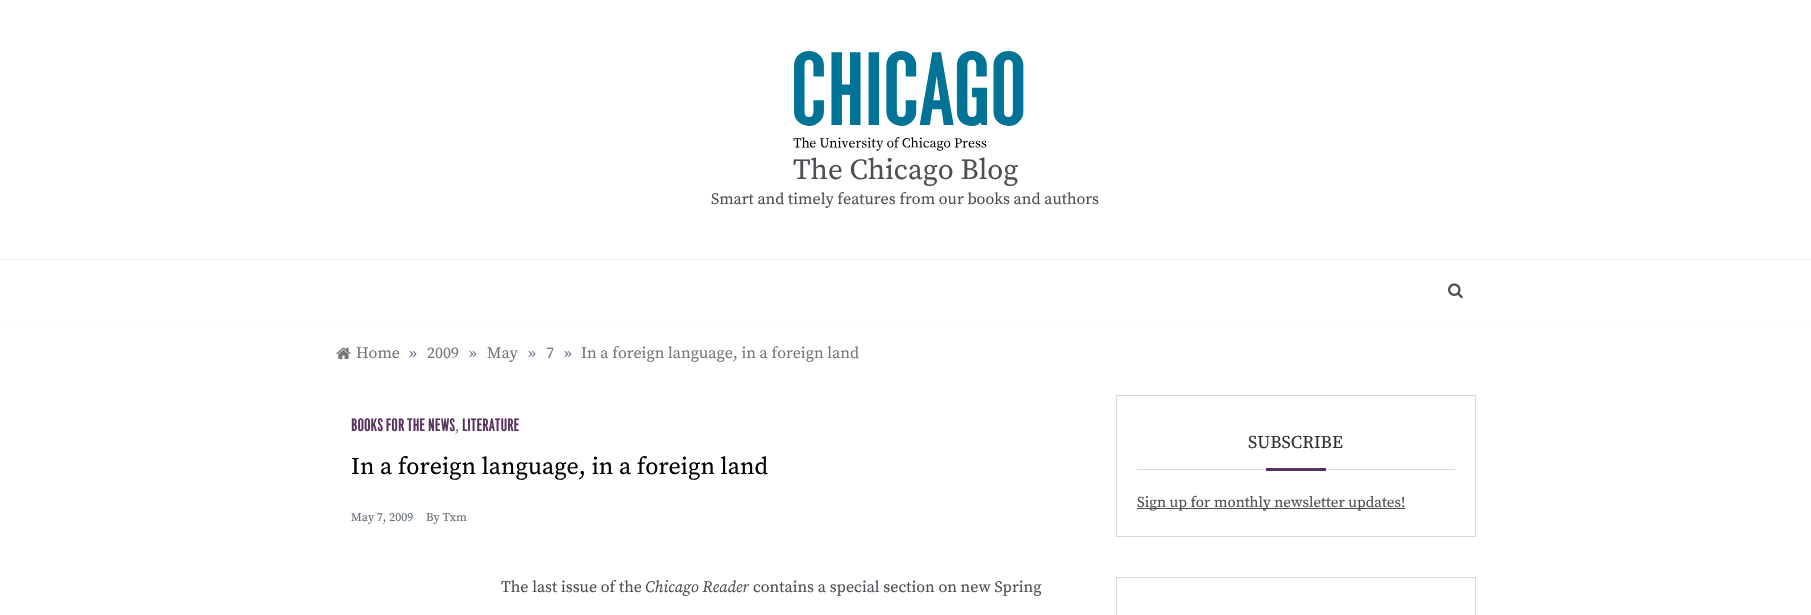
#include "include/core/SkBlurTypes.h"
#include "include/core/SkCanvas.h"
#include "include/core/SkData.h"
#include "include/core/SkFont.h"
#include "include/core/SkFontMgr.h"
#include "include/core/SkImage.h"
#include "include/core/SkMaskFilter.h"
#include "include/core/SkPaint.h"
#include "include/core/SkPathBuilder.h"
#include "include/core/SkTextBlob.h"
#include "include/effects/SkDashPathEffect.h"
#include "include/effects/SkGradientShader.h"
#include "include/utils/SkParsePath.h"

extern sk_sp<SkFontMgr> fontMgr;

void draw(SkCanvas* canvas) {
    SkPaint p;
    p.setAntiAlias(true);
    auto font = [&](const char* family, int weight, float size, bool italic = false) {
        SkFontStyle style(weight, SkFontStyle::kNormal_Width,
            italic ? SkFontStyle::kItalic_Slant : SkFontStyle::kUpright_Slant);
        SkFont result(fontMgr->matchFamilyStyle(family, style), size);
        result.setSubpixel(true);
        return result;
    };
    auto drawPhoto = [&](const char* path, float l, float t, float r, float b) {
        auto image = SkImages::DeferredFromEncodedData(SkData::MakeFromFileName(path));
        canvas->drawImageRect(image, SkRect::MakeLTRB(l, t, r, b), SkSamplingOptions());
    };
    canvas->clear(0xFFFFFFFF);
    p.setColor(0xFFFAFAFA);
    canvas->drawRect(SkRect::MakeLTRB(0, 320, 1811, 321), p);
    p.setColor(0xFFF2F2F2);
    canvas->drawRect(SkRect::MakeLTRB(0, 259, 1811, 260), p);
    drawPhoto("media/1.png", 793, 51, 1024, 151);
    auto font1 = font("Source Serif Pro", 400, 29);
    p.setColor(0xFF4C4F53);
    canvas->drawString("The Chicago Blog", 793, 179, font1, p);
    auto font2 = font("Source Serif Pro", 400, 16);
    canvas->drawString("Smart and timely features from our books and authors", 711, 204, font2, p);
    drawPhoto("media/2.png", 1448, 283, 1463, 299);
    drawPhoto("media/3.png", 336, 347, 351, 359);
    p.setColor(0xFF767676);
    canvas->drawString("Home", 356, 358, font2, p);
    p.setColor(0xFF697889);
    canvas->drawString("»", 409, 358, font2, p);
    p.setColor(0xFF767676);
    canvas->drawString("2009", 427, 358, font2, p);
    p.setColor(0xFF697889);
    canvas->drawString("»", 469, 358, font2, p);
    p.setColor(0xFF767676);
    canvas->drawString("May", 487, 358, font2, p);
    p.setColor(0xFF697889);
    canvas->drawString("»", 528, 358, font2, p);
    p.setColor(0xFF767676);
    canvas->drawString("7", 546, 358, font2, p);
    p.setColor(0xFF697889);
    canvas->drawString("»", 564, 358, font2, p);
    p.setColor(0xFF767676);
    canvas->drawString("In a foreign language, in a foreign land", 581, 358, font2, p);
    auto font3 = font("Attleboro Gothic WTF", 400, 14);
    p.setColor(0xFF59315F);
    canvas->drawString("BOOKS FOR THE NEWS", 351, 431, font3, p);
    auto font4 = font("Source Serif Pro", 400, 14);
    p.setColor(0xFF686E76);
    canvas->drawString(",", 455, 431, font4, p);
    p.setColor(0xFF59315F);
    canvas->drawString("LITERATURE", 462, 431, font3, p);
    auto font5 = font("Source Serif Pro", 400, 24);
    p.setColor(0xFF000000);
    canvas->drawString("In a foreign language, in a foreign land", 351, 474, font5, p);
    auto font6 = font("Source Serif Pro", 400, 12);
    p.setColor(0xFF686E76);
    canvas->drawString("May 7, 2009", 351, 521, font6, p);
    canvas->drawString("By Txm", 426, 521, font6, p);
    p.setColor(0xFF4C4F53);
    canvas->drawString("The last issue of the", 501, 592, font2, p);
    auto font7 = font("Source Serif Pro", 400, 16, true);
    canvas->drawString("Chicago Reader", 645, 592, font7, p);
    canvas->drawString("contains a special section on new Spring", 753, 592, font2, p);
    p.setStyle(SkPaint::kStroke_Style);
    p.setStrokeWidth(1);
    p.setColor(0xFFD9D9D9);
    canvas->drawRect(SkRect::MakeLTRB(1116.5f, 395.5f, 1475.5f, 536.5f), p);
    p.setStyle(SkPaint::kFill_Style);
    canvas->drawRect(SkRect::MakeLTRB(1137, 469, 1455, 470), p);
    auto font8 = font("Source Serif Pro", 400, 18);
    p.setColor(0xFF2F3235);
    canvas->drawString("SUBSCRIBE", 1248, 448, font8, p);
    p.setColor(0xFF59315F);
    canvas->drawRect(SkRect::MakeLTRB(1266, 468, 1326, 471), p);
    p.setColor(0xFF4C4F53);
    canvas->drawRect(SkRect::MakeLTRB(1137, 508, 1405, 509), p);
    auto font9 = font("Source Serif Pro", 400, 15);
    canvas->drawString("Sign up for monthly newsletter updates!", 1137, 507, font9, p);
    p.setStyle(SkPaint::kStroke_Style);
    p.setColor(0xFFD9D9D9);
    canvas->drawRect(SkRect::MakeLTRB(1116.5f, 577.5f, 1475.5f, 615.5f), p);
}
